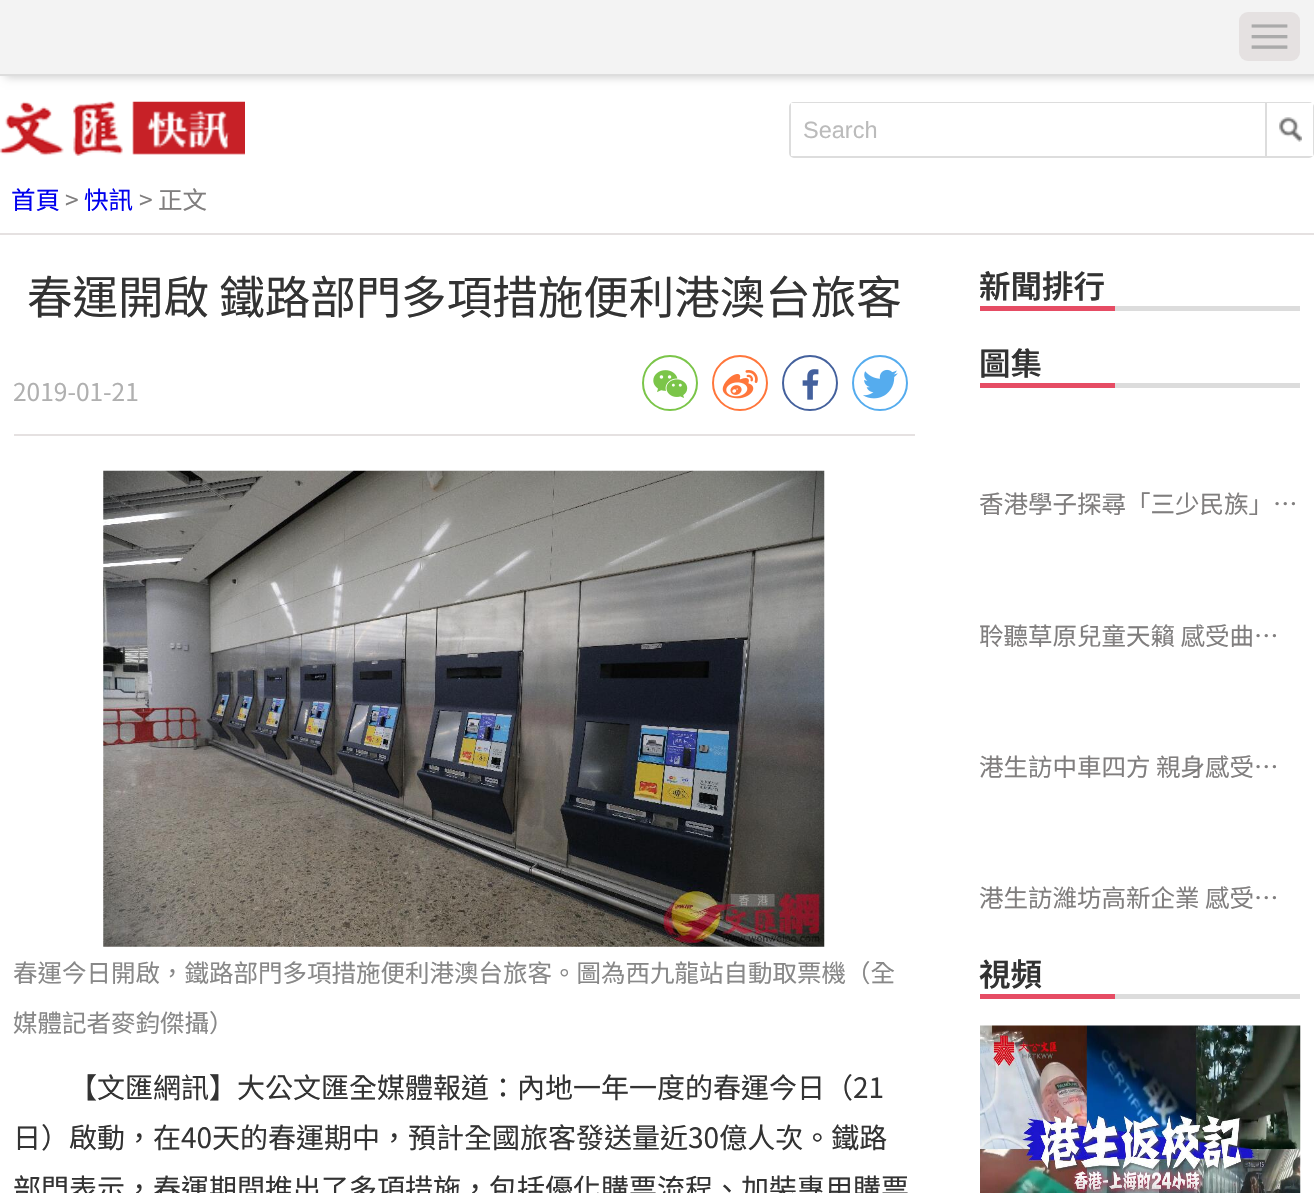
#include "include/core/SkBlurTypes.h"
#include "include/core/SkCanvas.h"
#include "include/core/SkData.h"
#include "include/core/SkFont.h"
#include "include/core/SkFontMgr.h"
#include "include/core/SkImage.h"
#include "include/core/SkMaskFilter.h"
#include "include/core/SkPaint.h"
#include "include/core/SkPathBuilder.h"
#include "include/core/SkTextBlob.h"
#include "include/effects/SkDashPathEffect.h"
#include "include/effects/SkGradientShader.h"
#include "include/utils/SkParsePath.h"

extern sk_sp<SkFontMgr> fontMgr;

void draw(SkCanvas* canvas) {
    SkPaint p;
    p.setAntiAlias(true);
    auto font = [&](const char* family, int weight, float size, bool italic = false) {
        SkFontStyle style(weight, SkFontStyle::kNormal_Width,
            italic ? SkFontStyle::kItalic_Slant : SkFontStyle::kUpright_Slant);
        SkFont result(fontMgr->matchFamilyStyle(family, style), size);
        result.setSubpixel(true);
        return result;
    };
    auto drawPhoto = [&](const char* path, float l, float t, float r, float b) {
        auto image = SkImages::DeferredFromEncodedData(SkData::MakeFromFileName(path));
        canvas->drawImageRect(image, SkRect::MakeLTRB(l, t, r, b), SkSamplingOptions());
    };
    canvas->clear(0xFFFFFFFF);
    p.setColor(0xFFCCCCCC);
    p.setMaskFilter(SkMaskFilter::MakeBlur(kNormal_SkBlurStyle, 4.5f));
    canvas->drawRect(SkRect::MakeLTRB(5, 2, 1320, 77), p);
    p.setMaskFilter(nullptr);
    p.setColor(0xFFF3F3F3);
    canvas->drawRect(SkRect::MakeLTRB(0, 0, 1314, 74), p);
    p.setColor(0xFFDDDDDD);
    canvas->drawRect(SkRect::MakeLTRB(0, 74, 1314, 76), p);
    p.setColor(0xFFE5E1E1);
    canvas->drawRoundRect(SkRect::MakeLTRB(1239, 12, 1300, 61), 9, 9, p);
    auto font1 = font("Noto Sans TC", 400, 49);
    p.setColor(0xFFAAAAAA);
    canvas->drawString("≡", 1245, 55, font1, p);
    p.setColor(0xFFE5E1E1);
    canvas->drawRect(SkRect::MakeLTRB(0, 233, 1314, 235), p);
    drawPhoto("media/1.png", 0, 101, 245, 156);
    p.setStyle(SkPaint::kStroke_Style);
    p.setStrokeWidth(2);
    p.setColor(0xFFDDDDDD);
    canvas->drawRoundRect(SkRect::MakeLTRB(790, 103, 1313, 157), 4, 4, p);
    p.setStyle(SkPaint::kFill_Style);
    p.setColor(0xFFFFFFFF);
    canvas->drawRect(SkRect::MakeLTRB(791, 103, 1313, 156), p);
    auto font2 = font("Liberation Sans", 400, 23.5f);
    p.setColor(0xFFBBBBBB);
    canvas->drawString("Search", 803, 138, font2, p);
    drawPhoto("media/2.png", 1279, 117, 1302, 142);
    p.setColor(0xFFDDDDDD);
    canvas->drawRect(SkRect::MakeLTRB(1265, 103, 1267, 156), p);
    auto font3 = font("Noto Sans TC", 400, 24.5f);
    p.setColor(0xFF0000EE);
    canvas->drawString("首頁", 11, 209, font3, p);
    p.setColor(0xFF807E7E);
    canvas->drawString(">", 65, 209, font3, p);
    p.setColor(0xFF0000EE);
    canvas->drawString("快訊", 84, 209, font3, p);
    p.setColor(0xFF807E7E);
    canvas->drawString("> 正文", 139, 209, font3, p);
    p.setColor(0xFFE5E1E1);
    canvas->drawRect(SkRect::MakeLTRB(14, 434, 915, 436), p);
    auto font4 = font("Noto Sans TC", 400, 45.5f);
    p.setColor(0xFF333333);
    canvas->drawString("春運開啟 鐵路部門多項措施便利港澳台旅客", 27, 314, font4, p);
    p.setColor(0xFFB0B0B0);
    canvas->drawString("2019-01-21", 13, 401, font3, p);
    p.setStyle(SkPaint::kStroke_Style);
    p.setColor(0xFF7BC549);
    canvas->drawCircle(670, 383, 27, p);
    drawPhoto("media/3.png", 653, 370, 688, 398);
    p.setColor(0xFFFF763B);
    canvas->drawCircle(740, 383, 27, p);
    drawPhoto("media/4.png", 722, 370, 758, 399);
    p.setColor(0xFF44619D);
    canvas->drawCircle(810, 383, 27, p);
    drawPhoto("media/5.png", 802, 369, 819, 400);
    p.setColor(0xFF55ACEE);
    canvas->drawCircle(880, 383, 27, p);
    drawPhoto("media/6.png", 863, 369, 898, 399);
    drawPhoto("media/7.png", 103, 470, 825, 947);
    p.setStyle(SkPaint::kFill_Style);
    p.setColor(0xFF888888);
    canvas->drawString("春運今日開啟，鐵路部門多項措施便利港澳台旅客。圖為西九龍站自動取票機（全", 13, 982, font3, p);
    canvas->drawString("媒體記者麥鈞傑攝）", 13, 1032, font3, p);
    auto font5 = font("Noto Sans TC", 400, 28);
    p.setColor(0xFF333333);
    {
        const struct { const char* s; float x, y; } items[] = {
            {"【文匯網訊】大公文匯全媒體報道：內地一年一度的春運今日（21", 69, 1098},
            {"日）啟動，在40天的春運期中，預計全國旅客發送量近30億人次。鐵路", 13, 1148},
            {"部門表示，春運期間推出了多項措施，包括優化購票流程、加裝專用購票", 13, 1199},
        };
        for (auto [s, x, y] : items) {
            canvas->drawString(s, x, y, font5, p);
        }
    }
    p.setColor(0xFFE64C64);
    canvas->drawRect(SkRect::MakeLTRB(980, 306, 1115, 311), p);
    auto font6 = font("Noto Sans TC", 600, 31.5f);
    p.setColor(0xFF333333);
    canvas->drawString("新聞排行", 979, 298, font6, p);
    p.setColor(0xFFDCDCDC);
    canvas->drawRect(SkRect::MakeLTRB(1115, 306, 1300, 311), p);
    p.setColor(0xFFE64C64);
    canvas->drawRect(SkRect::MakeLTRB(980, 383, 1115, 388), p);
    p.setColor(0xFF333333);
    canvas->drawString("圖集", 979, 375, font6, p);
    p.setColor(0xFFDCDCDC);
    canvas->drawRect(SkRect::MakeLTRB(1115, 383, 1300, 388), p);
    p.setColor(0xFF807E7E);
    {
        const struct { const char* s; float x, y; } items[] = {
            {"香港學子探尋「三少民族」…", 979, 513},
            {"聆聽草原兒童天籟 感受曲…", 979, 645},
            {"港生訪中車四方 親身感受…", 979, 776},
            {"港生訪濰坊高新企業 感受…", 979, 907},
        };
        for (auto [s, x, y] : items) {
            canvas->drawString(s, x, y, font3, p);
        }
    }
    p.setColor(0xFFE64C64);
    canvas->drawRect(SkRect::MakeLTRB(980, 994, 1115, 999), p);
    p.setColor(0xFF333333);
    canvas->drawString("視頻", 979, 986, font6, p);
    p.setColor(0xFFDCDCDC);
    canvas->drawRect(SkRect::MakeLTRB(1115, 994, 1300, 999), p);
    drawPhoto("media/8.png", 980, 1025, 1301, 1193);
}
